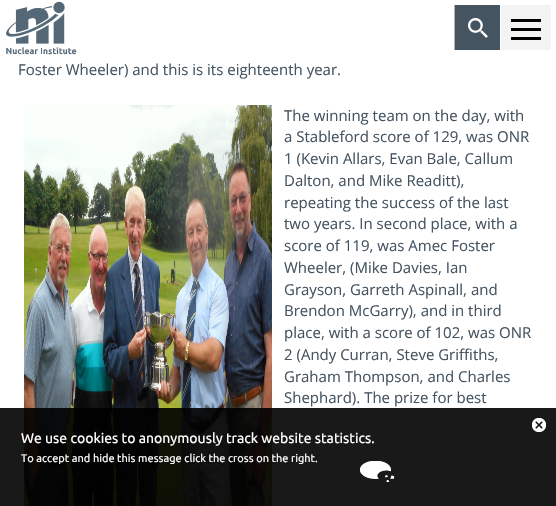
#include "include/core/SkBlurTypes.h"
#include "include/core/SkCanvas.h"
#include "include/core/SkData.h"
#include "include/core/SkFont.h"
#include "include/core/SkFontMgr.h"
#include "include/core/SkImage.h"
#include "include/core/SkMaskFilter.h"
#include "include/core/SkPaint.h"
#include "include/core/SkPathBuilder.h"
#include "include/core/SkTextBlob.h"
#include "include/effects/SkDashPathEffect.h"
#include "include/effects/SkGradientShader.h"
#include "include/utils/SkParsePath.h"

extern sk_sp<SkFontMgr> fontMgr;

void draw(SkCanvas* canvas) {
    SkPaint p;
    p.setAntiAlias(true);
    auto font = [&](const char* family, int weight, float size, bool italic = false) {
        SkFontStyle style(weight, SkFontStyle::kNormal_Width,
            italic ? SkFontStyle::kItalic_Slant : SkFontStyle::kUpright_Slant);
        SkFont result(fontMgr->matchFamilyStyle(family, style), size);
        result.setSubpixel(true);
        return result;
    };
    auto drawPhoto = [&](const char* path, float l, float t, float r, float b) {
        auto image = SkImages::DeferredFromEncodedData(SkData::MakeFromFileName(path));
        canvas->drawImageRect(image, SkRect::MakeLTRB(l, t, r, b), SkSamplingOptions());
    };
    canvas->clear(0xFFFFFFFF);
    drawPhoto("media/1.png", 6, 1, 77, 55);
    p.setColor(0xFFB2B2B2);
    canvas->drawRect(SkRect::MakeLTRB(454, 5, 455, 50), p);
    p.setColor(0xFF445461);
    canvas->drawRect(SkRect::MakeLTRB(455, 5, 500, 50), p);
    drawPhoto("media/2.png", 468, 18, 488, 38);
    {
        const struct { float l, t, r, b; SkColor color; } items[] = {
            {501, 5, 551, 50, 0xFFF3F3F3},
            {511, 28, 541, 31, 0xFF000000},
            {511, 19, 541, 22, 0xFF000000},
            {511, 37, 541, 40, 0xFF000000},
        };
        for (auto [l, t, r, b, color] : items) {
            p.setColor(color);
            canvas->drawRect(SkRect::MakeLTRB(l, t, r, b), p);
        }
    }
    auto font1 = font("Open Sans", 400, 15);
    p.setColor(0xFF445461);
    canvas->drawString("Foster Wheeler) and this is its eighteenth year.", 18, 75, font1, p);
    drawPhoto("media/3.png", 24, 105, 272, 506);
    {
        const struct { const char* s; float x, y; } items[] = {
            {"The winning team on the day, with", 284, 121},
            {"a Stableford score of 129, was ONR", 284, 142},
            {"1 (Kevin Allars, Evan Bale, Callum", 284, 164},
            {"Dalton, and Mike Readitt),", 284, 186},
            {"repeating the success of the last", 284, 208},
            {"two years. In second place, with a", 284, 229},
            {"score of 119, was Amec Foster", 284, 251},
            {"Wheeler, (Mike Davies, Ian", 284, 273},
            {"Grayson, Garreth Aspinall, and", 284, 295},
            {"Brendon McGarry), and in third", 284, 316},
            {"place, with a score of 102, was ONR", 284, 338},
            {"2 (Andy Curran, Steve Griffiths,", 284, 360},
            {"Graham Thompson, and Charles", 284, 382},
            {"Shephard). The prize for best", 284, 403},
        };
        for (auto [s, x, y] : items) {
            canvas->drawString(s, x, y, font1, p);
        }
    }
    p.setColor(0xE6000000);
    canvas->drawRect(SkRect::MakeLTRB(0, 408, 556, 506), p);
    drawPhoto("media/4.png", 532, 418, 546, 432);
    drawPhoto("media/5.png", 360, 461, 395, 482);
    auto font2 = font("Ubuntu", 400, 14);
    p.setColor(0xFFFFFFFF);
    canvas->drawString("We use cookies to anonymously track website statistics.", 21, 443, font2, p);
    auto font3 = font("Ubuntu", 400, 11);
    canvas->drawString("To accept and hide this message click the cross on the right.", 21, 462, font3, p);
}
